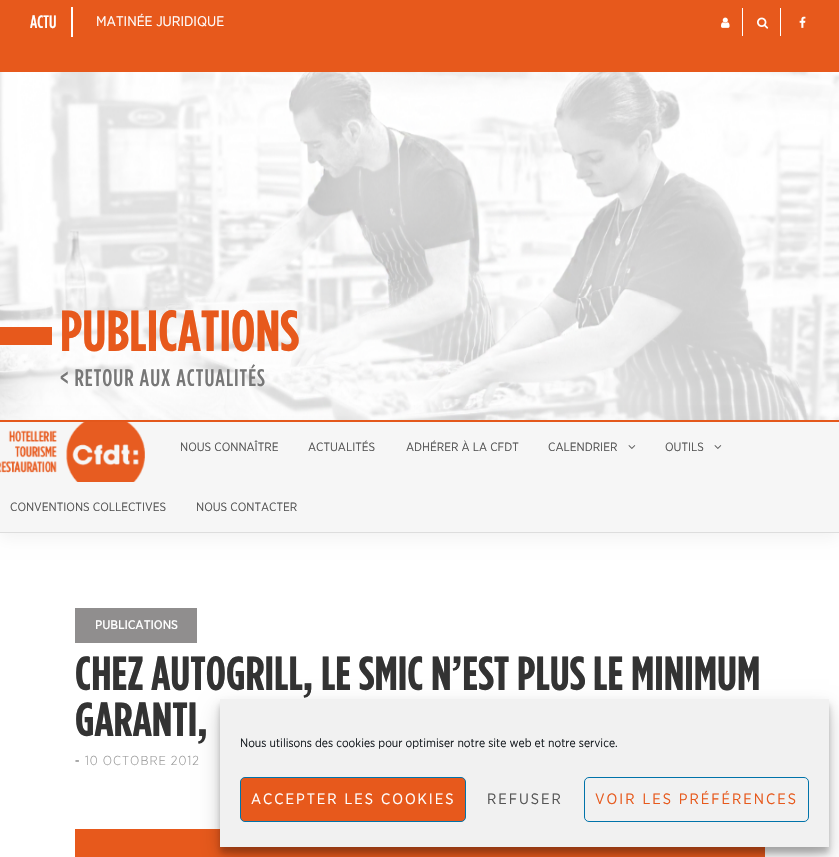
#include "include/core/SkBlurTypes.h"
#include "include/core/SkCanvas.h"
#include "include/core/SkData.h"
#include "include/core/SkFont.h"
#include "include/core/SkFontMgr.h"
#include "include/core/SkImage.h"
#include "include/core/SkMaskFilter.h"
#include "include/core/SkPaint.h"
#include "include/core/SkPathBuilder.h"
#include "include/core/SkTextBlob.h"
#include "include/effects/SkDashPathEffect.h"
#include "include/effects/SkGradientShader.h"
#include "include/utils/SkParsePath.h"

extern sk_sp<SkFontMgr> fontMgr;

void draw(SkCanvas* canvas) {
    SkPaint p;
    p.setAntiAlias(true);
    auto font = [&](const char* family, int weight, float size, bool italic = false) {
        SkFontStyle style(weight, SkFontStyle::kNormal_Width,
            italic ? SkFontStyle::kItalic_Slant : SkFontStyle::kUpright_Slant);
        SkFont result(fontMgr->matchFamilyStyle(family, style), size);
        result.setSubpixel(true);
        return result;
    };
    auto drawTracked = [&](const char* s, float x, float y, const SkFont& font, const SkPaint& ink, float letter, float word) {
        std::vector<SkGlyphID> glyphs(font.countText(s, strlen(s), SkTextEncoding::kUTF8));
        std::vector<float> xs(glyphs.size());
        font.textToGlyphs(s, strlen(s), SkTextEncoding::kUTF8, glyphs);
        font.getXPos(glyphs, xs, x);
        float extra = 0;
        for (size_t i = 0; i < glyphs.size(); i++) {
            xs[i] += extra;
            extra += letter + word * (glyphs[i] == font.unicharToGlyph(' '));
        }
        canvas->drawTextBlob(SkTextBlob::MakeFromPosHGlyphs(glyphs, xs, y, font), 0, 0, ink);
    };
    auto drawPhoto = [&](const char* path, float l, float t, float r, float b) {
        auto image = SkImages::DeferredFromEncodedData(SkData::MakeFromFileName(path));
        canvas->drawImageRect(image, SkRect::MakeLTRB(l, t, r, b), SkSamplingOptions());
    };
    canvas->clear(0xFFFFFFFF);
    p.setColor(0xFFE7591C);
    canvas->drawRect(SkRect::MakeLTRB(0, 0, 839, 72), p);
    p.setColor(0xFFFFFFFF);
    canvas->drawRect(SkRect::MakeLTRB(71, 7, 73, 37), p);
    auto font1 = font("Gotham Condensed", 500, 18);
    canvas->drawString("ACTU", 30, 28, font1, p);
    auto font2 = font("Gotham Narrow", 400, 14);
    canvas->drawString("MATINÉE JURIDIQUE", 96, 26, font2, p);
    canvas->drawRect(SkRect::MakeLTRB(742, 8, 743, 36), p);
    drawPhoto("media/1.png", 721, 17, 730, 28);
    canvas->drawRect(SkRect::MakeLTRB(780, 8, 781, 36), p);
    drawPhoto("media/2.png", 757, 17, 769, 29);
    drawPhoto("media/3.png", 799, 16, 806, 28);
    p.setColor(0xFFE7591C);
    canvas->drawRect(SkRect::MakeLTRB(0, 420, 839, 422), p);
    drawPhoto("media/6.png", 0, 72, 839, 420);
    canvas->drawRect(SkRect::MakeLTRB(0, 327, 52, 345), p);
    auto font3 = font("Gotham Condensed", 700, 58);
    canvas->drawString("PUBLICATIONS", 60, 351, font3, p);
    auto font4 = font("Gotham Condensed", 500, 24);
    p.setColor(0xFF777777);
    drawTracked("< RETOUR AUX ACTUALITÉS", 60, 386, font4, p, 1, 0);
    p.setColor(0x0D000000);
    p.setMaskFilter(SkMaskFilter::MakeBlur(kNormal_SkBlurStyle, 7.5f));
    canvas->drawRect(SkRect::MakeLTRB(0, 427, 839, 538), p);
    p.setMaskFilter(nullptr);
    p.setColor(0xFFF6F6F6);
    canvas->drawRect(SkRect::MakeLTRB(0, 422, 839, 532), p);
    p.setColor(0xFFDDDDDD);
    canvas->drawRect(SkRect::MakeLTRB(0, 532, 839, 533), p);
    drawPhoto("media/4.png", 0, 422, 145, 482);
    auto font5 = font("Gotham Narrow", 400, 12);
    p.setColor(0xFF555555);
    {
        const struct { const char* s; float x, y; } items[] = {
            {"NOUS CONNAÎTRE", 180, 451},
            {"ACTUALITÉS", 308, 451},
            {"ADHÉRER À LA CFDT", 406, 451},
            {"CALENDRIER", 548, 451},
        };
        for (auto [s, x, y] : items) {
            canvas->drawString(s, x, y, font5, p);
        }
    }
    drawPhoto("media/5.png", 628, 445, 636, 449);
    canvas->drawString("OUTILS", 665, 451, font5, p);
    drawPhoto("media/5.png", 714, 445, 722, 449);
    canvas->drawString("CONVENTIONS COLLECTIVES", 10, 511, font5, p);
    canvas->drawString("NOUS CONTACTER", 196, 511, font5, p);
    p.setColor(0xFF908E8E);
    canvas->drawRect(SkRect::MakeLTRB(75, 608, 197, 643), p);
    auto font6 = font("Gotham Narrow", 700, 12);
    p.setColor(0xFFFFFFFF);
    drawTracked("PUBLICATIONS", 95, 629, font6, p, 0.25f, 0);
    auto font7 = font("Gotham Condensed", 700, 48);
    p.setColor(0xFF333333);
    canvas->drawString("CHEZ AUTOGRILL, LE SMIC N’EST PLUS LE MINIMUM", 75, 690, font7, p);
    canvas->drawString("GARANTI,", 75, 736, font7, p);
    auto font8 = font("Gotham Condensed", 700, 13);
    p.setColor(0xFF999999);
    canvas->drawString("-", 75, 765, font8, p);
    auto font9 = font("Gotham Narrow", 300, 13);
    drawTracked("10 OCTOBRE 2012", 85, 765, font9, p, 1, 0);
    p.setColor(0xFFE7591C);
    canvas->drawRect(SkRect::MakeLTRB(75, 829, 765, 857), p);
    p.setColor(0x3B000000);
    p.setMaskFilter(SkMaskFilter::MakeBlur(kNormal_SkBlurStyle, 3));
    canvas->drawRect(SkRect::MakeLTRB(220, 705, 829, 853), p);
    p.setMaskFilter(nullptr);
    p.setColor(0x30000000);
    p.setMaskFilter(SkMaskFilter::MakeBlur(kNormal_SkBlurStyle, 10));
    canvas->drawRect(SkRect::MakeLTRB(220, 709, 829, 857), p);
    p.setMaskFilter(nullptr);
    p.setColor(0xFFF1F1F1);
    canvas->drawRect(SkRect::MakeLTRB(220, 699, 829, 847), p);
    p.setColor(0xFF191E23);
    canvas->drawString("Nous utilisons des cookies pour optimiser notre site web et notre service.", 240, 747, font5, p);
    p.setColor(0xFFE7591C);
    canvas->drawRoundRect(SkRect::MakeLTRB(240.5f, 777.5f, 465.5f, 821.5f), 4.5f, 4.5f, p);
    p.setStyle(SkPaint::kStroke_Style);
    p.setStrokeWidth(1);
    p.setColor(0xFF0073AA);
    canvas->drawRoundRect(SkRect::MakeLTRB(240.5f, 777.5f, 465.5f, 821.5f), 4.5f, 4.5f, p);
    auto font10 = font("Gotham Narrow", 400, 15);
    p.setStyle(SkPaint::kFill_Style);
    p.setColor(0xFFFFFFFF);
    drawTracked("ACCEPTER LES COOKIES", 251, 804, font10, p, 2, 0);
    p.setColor(0xFF555555);
    drawTracked("REFUSER", 487, 804, font10, p, 2, 0);
    p.setStyle(SkPaint::kStroke_Style);
    p.setColor(0xFF0073AA);
    canvas->drawRoundRect(SkRect::MakeLTRB(584.5f, 777.5f, 808.5f, 821.5f), 4.5f, 4.5f, p);
    p.setStyle(SkPaint::kFill_Style);
    p.setColor(0xFFE7591C);
    drawTracked("VOIR LES PRÉFÉRENCES", 595, 804, font10, p, 2, 0);
}
